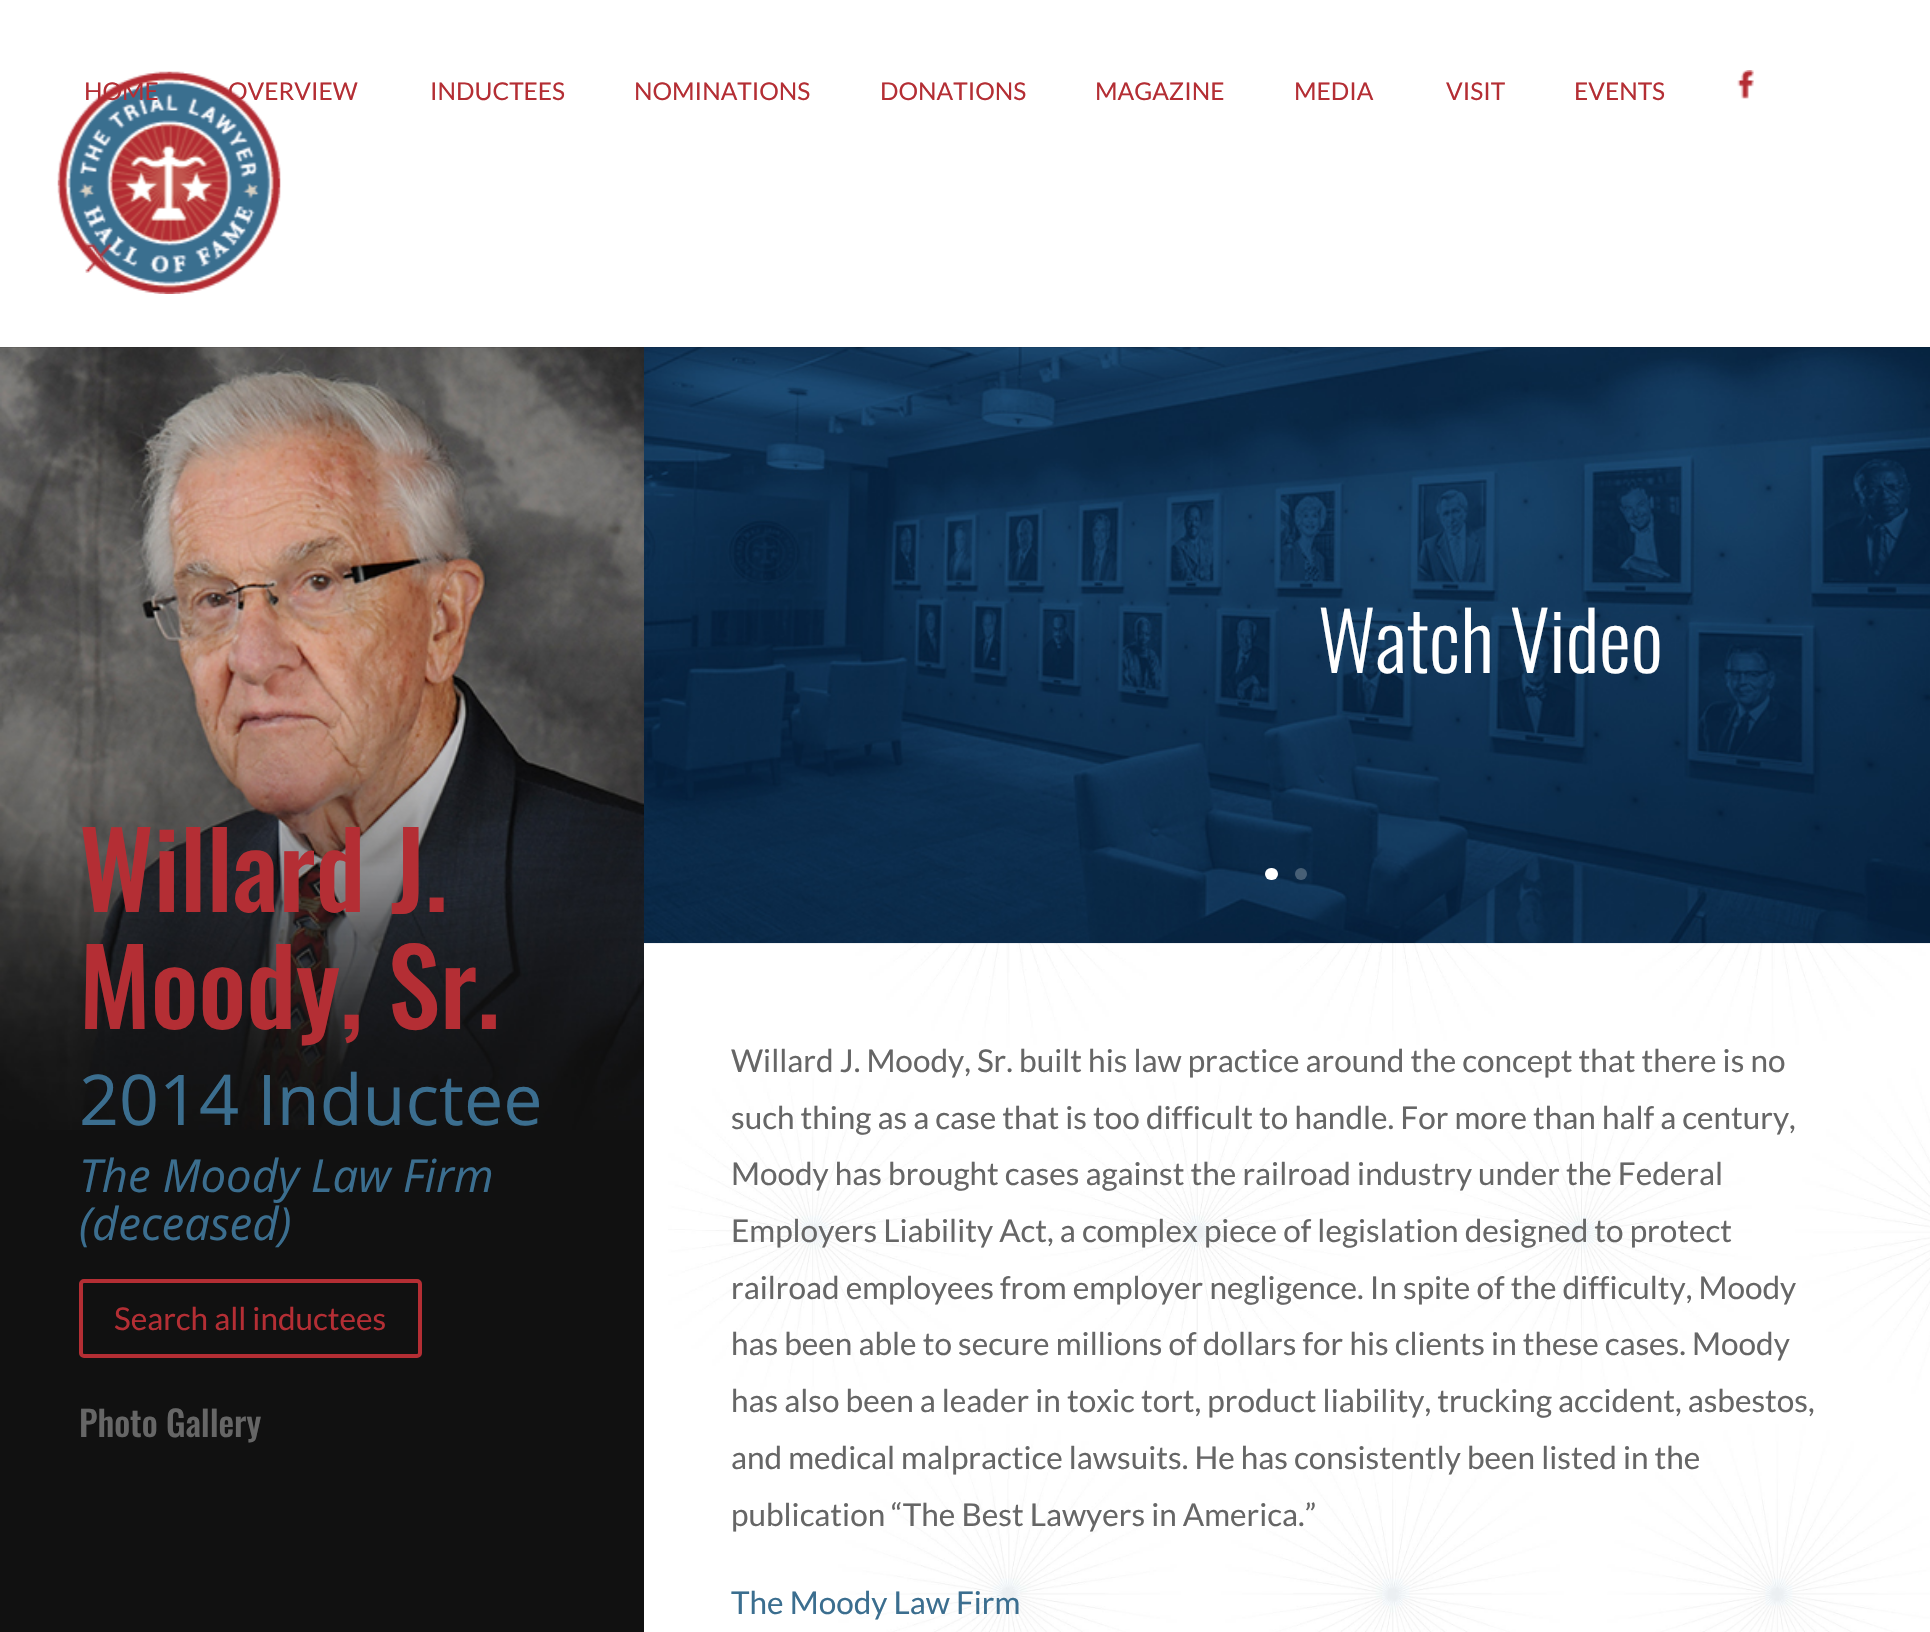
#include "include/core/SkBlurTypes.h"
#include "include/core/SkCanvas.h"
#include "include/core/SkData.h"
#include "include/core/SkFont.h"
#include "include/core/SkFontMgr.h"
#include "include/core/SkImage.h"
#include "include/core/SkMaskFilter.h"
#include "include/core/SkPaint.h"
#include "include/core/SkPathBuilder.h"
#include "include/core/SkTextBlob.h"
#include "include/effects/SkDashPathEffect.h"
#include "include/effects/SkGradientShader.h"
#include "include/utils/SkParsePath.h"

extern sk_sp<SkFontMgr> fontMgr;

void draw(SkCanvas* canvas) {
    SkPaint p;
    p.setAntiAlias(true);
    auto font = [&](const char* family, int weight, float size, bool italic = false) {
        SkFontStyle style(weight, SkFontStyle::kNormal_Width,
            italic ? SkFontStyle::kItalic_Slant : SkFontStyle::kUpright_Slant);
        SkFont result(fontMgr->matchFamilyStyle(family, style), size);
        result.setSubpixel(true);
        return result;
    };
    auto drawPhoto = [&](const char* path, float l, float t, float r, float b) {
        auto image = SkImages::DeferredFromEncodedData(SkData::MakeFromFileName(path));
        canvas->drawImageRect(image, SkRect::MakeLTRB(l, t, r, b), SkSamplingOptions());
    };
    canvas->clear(0xFFFFFFFF);
    drawPhoto("media/4.png", 0, 347, 644, 1130);
    drawPhoto("media/5.png", 668, 943, 1930, 1632);
    drawPhoto("media/6.png", 644, 347, 1930, 944);
    p.setColor(0x1A000000);
    canvas->drawRect(SkRect::MakeLTRB(0, 347, 1930, 348), p);
    drawPhoto("media/1.png", 57, 71, 281, 294);
    auto font1 = font("Lato", 400, 24.5f);
    p.setColor(0xFFB42E34);
    {
        const struct { const char* s; float x, y; } items[] = {
            {"HOME", 84, 100},
            {"OVERVIEW", 228, 100},
            {"INDUCTEES", 430, 100},
            {"NOMINATIONS", 634, 100},
            {"DONATIONS", 880, 100},
            {"MAGAZINE", 1095, 100},
            {"MEDIA", 1294, 100},
            {"VISIT", 1446, 100},
            {"EVENTS", 1574, 100},
        };
        for (auto [s, x, y] : items) {
            canvas->drawString(s, x, y, font1, p);
        }
    }
    drawPhoto("media/2.png", 1737, 70, 1754, 99);
    drawPhoto("media/3.png", 85, 243, 113, 273);
    p.setColor(0xFF111111);
    canvas->drawRect(SkRect::MakeLTRB(0, 1130, 644, 1632), p);
    auto font2 = font("Oswald", 500, 105);
    p.setColor(0xFFB42E34);
    canvas->drawString("Willard J.", 79, 912, font2, p);
    canvas->drawString("Moody, Sr.", 79, 1029, font2, p);
    auto font3 = font("Open Sans", 400, 70);
    p.setColor(0xFF3B6E8F);
    canvas->drawString("2014 Inductee", 79, 1125, font3, p);
    auto font4 = font("Open Sans", 400, 45.5f, true);
    canvas->drawString("The Moody Law Firm", 79, 1192, font4, p);
    canvas->drawString("(deceased)", 79, 1240, font4, p);
    p.setStyle(SkPaint::kStroke_Style);
    p.setStrokeWidth(4);
    p.setColor(0xFFB42E34);
    canvas->drawRoundRect(SkRect::MakeLTRB(81, 1281, 420, 1356), 3, 3, p);
    auto font5 = font("Lato", 400, 31.5f);
    p.setStyle(SkPaint::kFill_Style);
    canvas->drawString("Search all inductees", 114, 1330, font5, p);
    auto font6 = font("Oswald", 500, 35);
    p.setColor(0xFF666666);
    canvas->drawString("Photo Gallery", 79, 1437, font6, p);
    auto font7 = font("Oswald", 300, 80.5f);
    p.setColor(0xFFFFFFFF);
    canvas->drawString("Watch Video", 1318, 673, font7, p);
    canvas->drawRoundRect(SkRect::MakeLTRB(1265, 868, 1278, 880), 6, 6, p);
    p.setColor(0x40FFFFFF);
    canvas->drawCircle(1301, 874, 6, p);
    p.setColor(0xFF666666);
    {
        const struct { const char* s; float x, y; } items[] = {
            {"Willard J. Moody, Sr. built his law practice around the concept that there is no", 731, 1072},
            {"such thing as a case that is too difficult to handle. For more than half a century,", 731, 1129},
            {"Moody has brought cases against the railroad industry under the Federal", 731, 1185},
            {"Employers Liability Act, a complex piece of legislation designed to protect", 731, 1242},
            {"railroad employees from employer negligence. In spite of the difficulty, Moody", 731, 1299},
            {"has been able to secure millions of dollars for his clients in these cases. Moody", 731, 1355},
            {"has also been a leader in toxic tort, product liability, trucking accident, asbestos,", 731, 1412},
            {"and medical malpractice lawsuits. He has consistently been listed in the", 731, 1469},
            {"publication “The Best Lawyers in America.”", 731, 1526},
        };
        for (auto [s, x, y] : items) {
            canvas->drawString(s, x, y, font5, p);
        }
    }
    p.setColor(0xFF3B6E8F);
    canvas->drawString("The Moody Law Firm", 731, 1614, font5, p);
}
